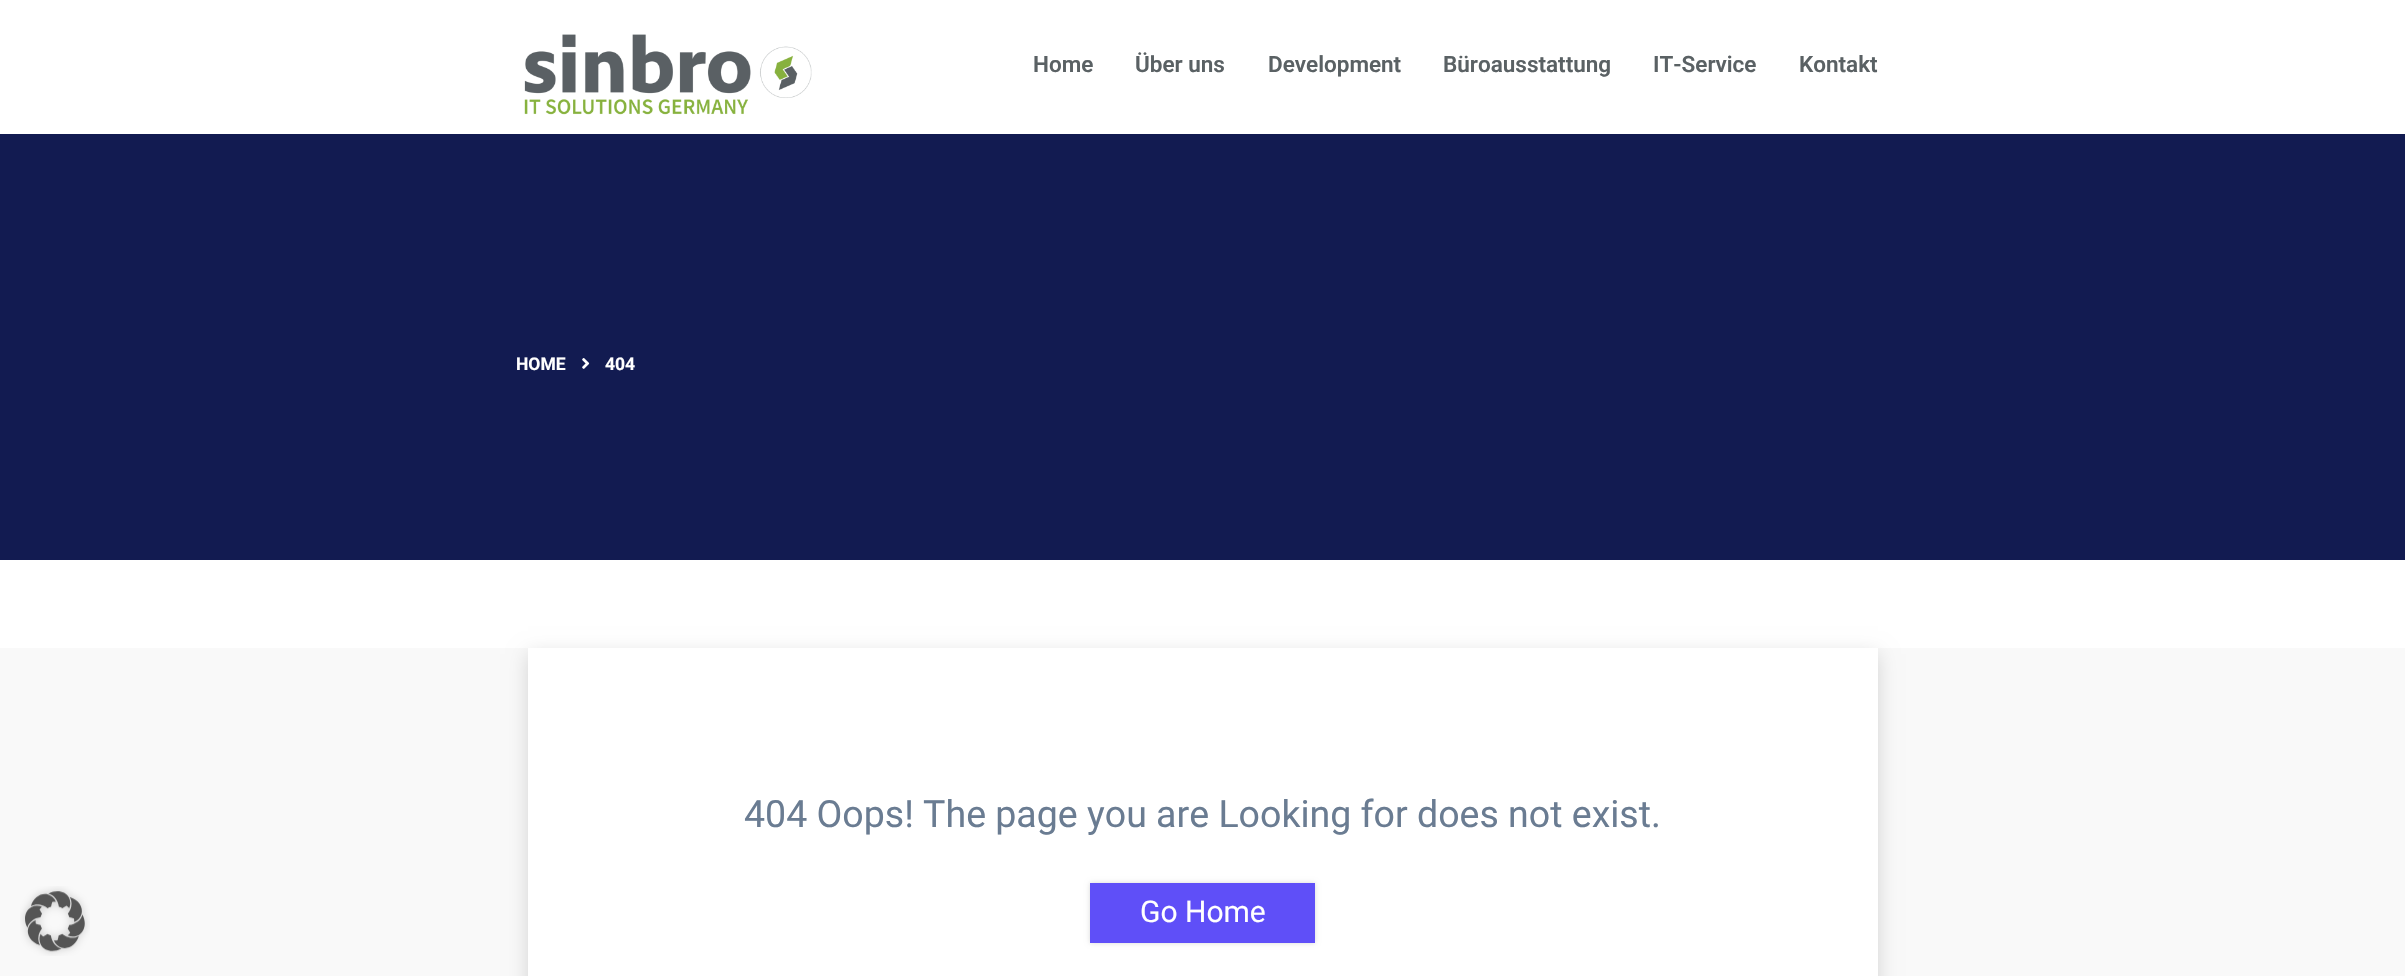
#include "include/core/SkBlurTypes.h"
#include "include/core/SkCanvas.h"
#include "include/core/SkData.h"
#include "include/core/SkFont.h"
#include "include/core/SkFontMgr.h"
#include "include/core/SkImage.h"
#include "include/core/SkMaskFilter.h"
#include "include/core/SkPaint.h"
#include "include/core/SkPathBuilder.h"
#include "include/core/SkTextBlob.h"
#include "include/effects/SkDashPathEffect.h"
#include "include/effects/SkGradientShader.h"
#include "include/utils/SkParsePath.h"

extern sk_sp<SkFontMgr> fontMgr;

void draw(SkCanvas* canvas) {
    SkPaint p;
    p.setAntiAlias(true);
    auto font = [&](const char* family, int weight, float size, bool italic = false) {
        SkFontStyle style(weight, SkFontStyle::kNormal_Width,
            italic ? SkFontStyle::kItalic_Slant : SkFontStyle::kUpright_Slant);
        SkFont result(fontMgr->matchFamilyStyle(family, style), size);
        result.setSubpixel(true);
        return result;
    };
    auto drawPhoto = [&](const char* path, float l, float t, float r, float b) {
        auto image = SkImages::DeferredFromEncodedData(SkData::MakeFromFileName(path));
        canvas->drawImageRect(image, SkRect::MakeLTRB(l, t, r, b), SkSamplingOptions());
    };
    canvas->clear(0xFFFFFFFF);
    p.setColor(0xFFF9F9F9);
    canvas->drawRect(SkRect::MakeLTRB(0, 648, 2405, 976), p);
    drawPhoto("media/1.png", 20, 886, 90, 956);
    drawPhoto("media/2.png", 524, 34, 812, 115);
    auto font1 = font("Roboto", 600, 22.5f);
    p.setColor(0xFF5A6164);
    {
        const struct { const char* s; float x, y; } items[] = {
            {"Home", 1033, 72},
            {"Über uns", 1135, 72},
            {"Development", 1268, 72},
            {"Büroausstattung", 1443, 72},
            {"IT-Service", 1653, 72},
            {"Kontakt", 1799, 72},
        };
        for (auto [s, x, y] : items) {
            canvas->drawString(s, x, y, font1, p);
        }
    }
    p.setColor(0xFF121B51);
    canvas->drawRect(SkRect::MakeLTRB(0, 134, 2405, 560), p);
    auto font2 = font("Roboto", 700, 17.5f);
    p.setColor(0xFFFFFFFF);
    canvas->drawString("HOME", 516, 370, font2, p);
    drawPhoto("media/3.png", 582, 358, 590, 369);
    canvas->drawString("404", 605, 370, font2, p);
    p.setColor(0x26000000);
    p.setMaskFilter(SkMaskFilter::MakeBlur(kNormal_SkBlurStyle, 9.5f));
    canvas->drawRect(SkRect::MakeLTRB(528, 654, 1878, 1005), p);
    p.setMaskFilter(nullptr);
    p.setColor(0xFFFFFFFF);
    canvas->drawRect(SkRect::MakeLTRB(528, 648, 1878, 976), p);
    auto font3 = font("Roboto", 400, 37.5f);
    p.setColor(0xFF6A7C92);
    canvas->drawString("404 Oops! The page you are Looking for does not exist.", 744, 827, font3, p);
    p.setColor(0x26000000);
    p.setMaskFilter(SkMaskFilter::MakeBlur(kNormal_SkBlurStyle, 2.5f));
    canvas->drawRect(SkRect::MakeLTRB(1090, 883, 1315, 943), p);
    p.setMaskFilter(nullptr);
    p.setColor(0xFF5F4FF8);
    canvas->drawRect(SkRect::MakeLTRB(1090, 883, 1315, 943), p);
    auto font4 = font("Roboto", 400, 30);
    p.setColor(0xFFFFFFFF);
    canvas->drawString("Go Home", 1140, 922, font4, p);
}
